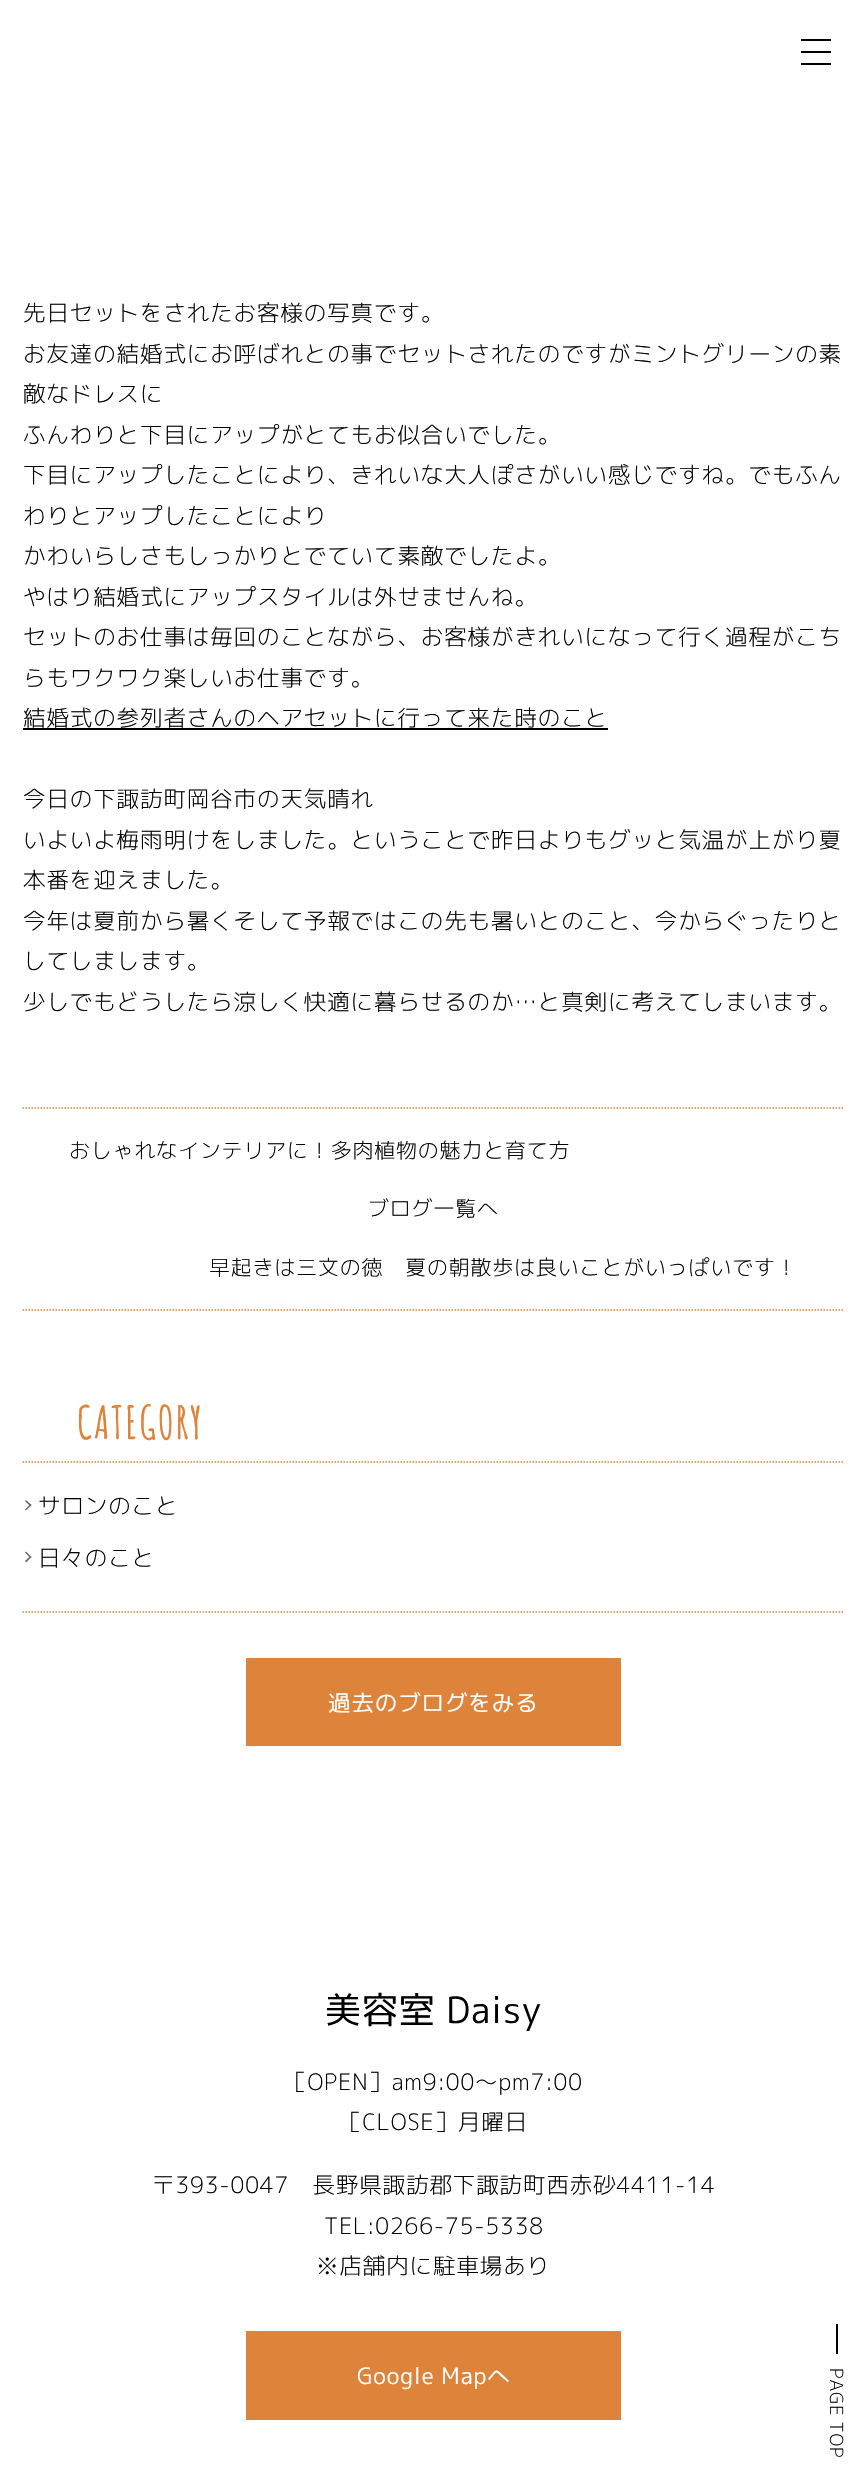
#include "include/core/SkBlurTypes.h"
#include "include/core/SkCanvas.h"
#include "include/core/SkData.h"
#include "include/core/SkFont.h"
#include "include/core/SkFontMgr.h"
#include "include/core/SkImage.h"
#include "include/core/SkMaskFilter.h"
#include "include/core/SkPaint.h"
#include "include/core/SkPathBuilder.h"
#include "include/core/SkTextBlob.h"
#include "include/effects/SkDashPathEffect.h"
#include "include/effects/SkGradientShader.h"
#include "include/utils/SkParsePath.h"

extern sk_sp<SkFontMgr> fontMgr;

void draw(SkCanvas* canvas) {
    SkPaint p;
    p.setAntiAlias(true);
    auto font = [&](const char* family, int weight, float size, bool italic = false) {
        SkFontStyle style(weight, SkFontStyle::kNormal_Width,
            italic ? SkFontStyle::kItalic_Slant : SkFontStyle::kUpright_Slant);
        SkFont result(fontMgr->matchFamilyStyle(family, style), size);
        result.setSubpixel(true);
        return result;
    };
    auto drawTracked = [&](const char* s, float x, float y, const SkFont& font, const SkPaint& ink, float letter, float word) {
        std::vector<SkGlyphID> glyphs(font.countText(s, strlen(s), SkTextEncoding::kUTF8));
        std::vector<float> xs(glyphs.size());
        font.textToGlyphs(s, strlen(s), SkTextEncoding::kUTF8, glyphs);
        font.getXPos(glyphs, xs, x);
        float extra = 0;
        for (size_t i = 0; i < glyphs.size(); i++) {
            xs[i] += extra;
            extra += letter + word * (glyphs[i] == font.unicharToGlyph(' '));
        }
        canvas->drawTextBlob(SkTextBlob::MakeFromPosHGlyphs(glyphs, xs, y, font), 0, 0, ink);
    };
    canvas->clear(0xFFFFFFFF);
    {
        const struct { float l, t, r, b; SkColor color; } items[] = {
            {801, 51, 831, 53, 0xFF000000},
            {801, 39, 831, 41, 0xFF000000},
            {801, 63, 831, 65, 0xFF000000},
        };
        for (auto [l, t, r, b, color] : items) {
            p.setColor(color);
            canvas->drawRect(SkRect::MakeLTRB(l, t, r, b), p);
        }
    }
    auto font1 = font("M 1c", 300, 22.5f);
    {
        const struct { const char* s; float x, y; } items[] = {
            {"先日セットをされたお客様の写真です。", 23, 321},
            {"お友達の結婚式にお呼ばれとの事でセットされたのですがミントグリーンの素", 23, 362},
            {"敵なドレスに", 23, 402},
            {"ふんわりと下目にアップがとてもお似合いでした。", 23, 443},
            {"下目にアップしたことにより、きれいな大人ぽさがいい感じですね。でもふん", 23, 483},
            {"わりとアップしたことにより", 23, 524},
            {"かわいらしさもしっかりとでていて素敵でしたよ。", 23, 564},
            {"やはり結婚式にアップスタイルは外せませんね。", 23, 605},
            {"セットのお仕事は毎回のことながら、お客様がきれいになって行く過程がこち", 23, 645},
            {"らもワクワク楽しいお仕事です。", 23, 686},
        };
        for (auto [s, x, y] : items) {
            drawTracked(s, x, y, font1, p, 0.9f, 0);
        }
    }
    canvas->drawRect(SkRect::MakeLTRB(23, 728, 608, 730), p);
    {
        const struct { const char* s; float x, y; } items[] = {
            {"結婚式の参列者さんのヘアセットに行って来た時のこと", 23, 726},
            {"今日の下諏訪町岡谷市の天気晴れ", 23, 807},
            {"いよいよ梅雨明けをしました。ということで昨日よりもグッと気温が上がり夏", 23, 848},
            {"本番を迎えました。", 23, 888},
            {"今年は夏前から暑くそして予報ではこの先も暑いとのこと、今からぐったりと", 23, 929},
            {"してしまします。", 23, 969},
            {"少しでもどうしたら涼しく快適に暮らせるのか…と真剣に考えてしまいます。", 23, 1010},
        };
        for (auto [s, x, y] : items) {
            drawTracked(s, x, y, font1, p, 0.9f, 0);
        }
    }
    p.setStyle(SkPaint::kStroke_Style);
    p.setStrokeWidth(1.5f);
    p.setColor(0xFFDD833A);
    p.setPathEffect(SkDashPathEffect::Make({{1.5f, 1.5f}}, 0));
    canvas->drawPath(SkPathBuilder().moveTo(22.5f, 1108).lineTo(844.5f, 1108).detach(), p);
    p.setPathEffect(nullptr);
    p.setPathEffect(SkDashPathEffect::Make({{1.5f, 1.5f}}, 0));
    canvas->drawPath(SkPathBuilder().moveTo(22.5f, 1310).lineTo(844.5f, 1310).detach(), p);
    p.setPathEffect(nullptr);
    auto font2 = font("M 1c", 300, 20.9f);
    p.setStyle(SkPaint::kFill_Style);
    p.setColor(0xFF000000);
    {
        const struct { const char* s; float x, y; } items[] = {
            {"おしゃれなインテリアに！多肉植物の魅力と育て方", 69, 1158},
            {"ブログ一覧へ", 368, 1216},
            {"早起きは三文の徳　夏の朝散歩は良いことがいっぱいです！", 209, 1275},
        };
        for (auto [s, x, y] : items) {
            drawTracked(s, x, y, font2, p, 0.9f, 0);
        }
    }
    p.setStyle(SkPaint::kStroke_Style);
    p.setColor(0xFFDD833A);
    p.setPathEffect(SkDashPathEffect::Make({{1.5f, 1.5f}}, 0));
    canvas->drawPath(SkPathBuilder().moveTo(22.5f, 1462).lineTo(844.5f, 1462).detach(), p);
    p.setPathEffect(nullptr);
    auto font3 = font("Amatic SC", 700, 45);
    p.setStyle(SkPaint::kFill_Style);
    drawTracked("CATEGORY", 77, 1439, font3, p, 1.75f, 0);
    p.setStyle(SkPaint::kStroke_Style);
    p.setPathEffect(SkDashPathEffect::Make({{1.5f, 1.5f}}, 0));
    canvas->drawPath(SkPathBuilder().moveTo(22.5f, 1612).lineTo(844.5f, 1612).detach(), p);
    p.setPathEffect(nullptr);
    p.setStyle(SkPaint::kFill_Style);
    p.setColor(0xFF666666);
    canvas->drawPath(SkPathBuilder().moveTo(26, 1500).lineTo(31.5f, 1505).lineTo(30.5f, 1506.5f).lineTo(25, 1501).close().detach(), p);
    canvas->drawPath(SkPathBuilder().moveTo(30.5f, 1504).lineTo(31.5f, 1505).lineTo(26, 1510.5f).lineTo(25, 1509.5f).close().detach(), p);
    p.setColor(0xFF000000);
    drawTracked("サロンのこと", 38, 1514, font1, p, 0.9f, 0);
    p.setColor(0xFF666666);
    canvas->drawPath(SkPathBuilder().moveTo(26, 1551.5f).lineTo(31.5f, 1557).lineTo(30.5f, 1558).lineTo(25, 1552.5f).close().detach(), p);
    canvas->drawPath(SkPathBuilder().moveTo(30.5f, 1556).lineTo(31.5f, 1557).lineTo(26, 1562.5f).lineTo(25, 1561).close().detach(), p);
    p.setColor(0xFF000000);
    drawTracked("日々のこと", 38, 1566, font1, p, 0.9f, 0);
    p.setColor(0xFFDD833A);
    canvas->drawRect(SkRect::MakeLTRB(246, 1658, 621, 1746), p);
    auto font4 = font("M 1c", 400, 22.5f);
    p.setColor(0xFFFFFFFF);
    drawTracked("過去のブログをみる", 328, 1711, font4, p, 0.9f, 0);
    auto font5 = font("M 1c", 400, 36);
    p.setColor(0xFF000000);
    drawTracked("美容室 Daisy", 325, 2023, font5, p, 0.9f, 0);
    {
        const struct { const char* s; float x, y; } items[] = {
            {"［OPEN］am9:00～pm7:00", 284, 2090},
            {"［CLOSE］月曜日", 339, 2130},
            {"〒393-0047　長野県諏訪郡下諏訪町西赤砂4411-14", 152, 2193},
            {"TEL:0266-75-5338", 324, 2234},
            {"※店舗内に駐車場あり", 316, 2274},
        };
        for (auto [s, x, y] : items) {
            drawTracked(s, x, y, font1, p, 0.9f, 0);
        }
    }
    p.setColor(0xFFDD833A);
    canvas->drawRect(SkRect::MakeLTRB(246, 2331, 621, 2420), p);
    p.setColor(0xFFFFFFFF);
    drawTracked("Google Mapへ", 357, 2384, font4, p, 0.9f, 0);
    p.setColor(0xFF000000);
    canvas->drawRect(SkRect::MakeLTRB(836, 2324, 838, 2354), p);
    auto font6 = font("M 1c", 300, 18);
    canvas->save();
    canvas->rotate(90, 830, 2368);
    drawTracked("PAGE TOP", 830, 2368, font6, p, 0.9f, -1);
    canvas->restore();
}
